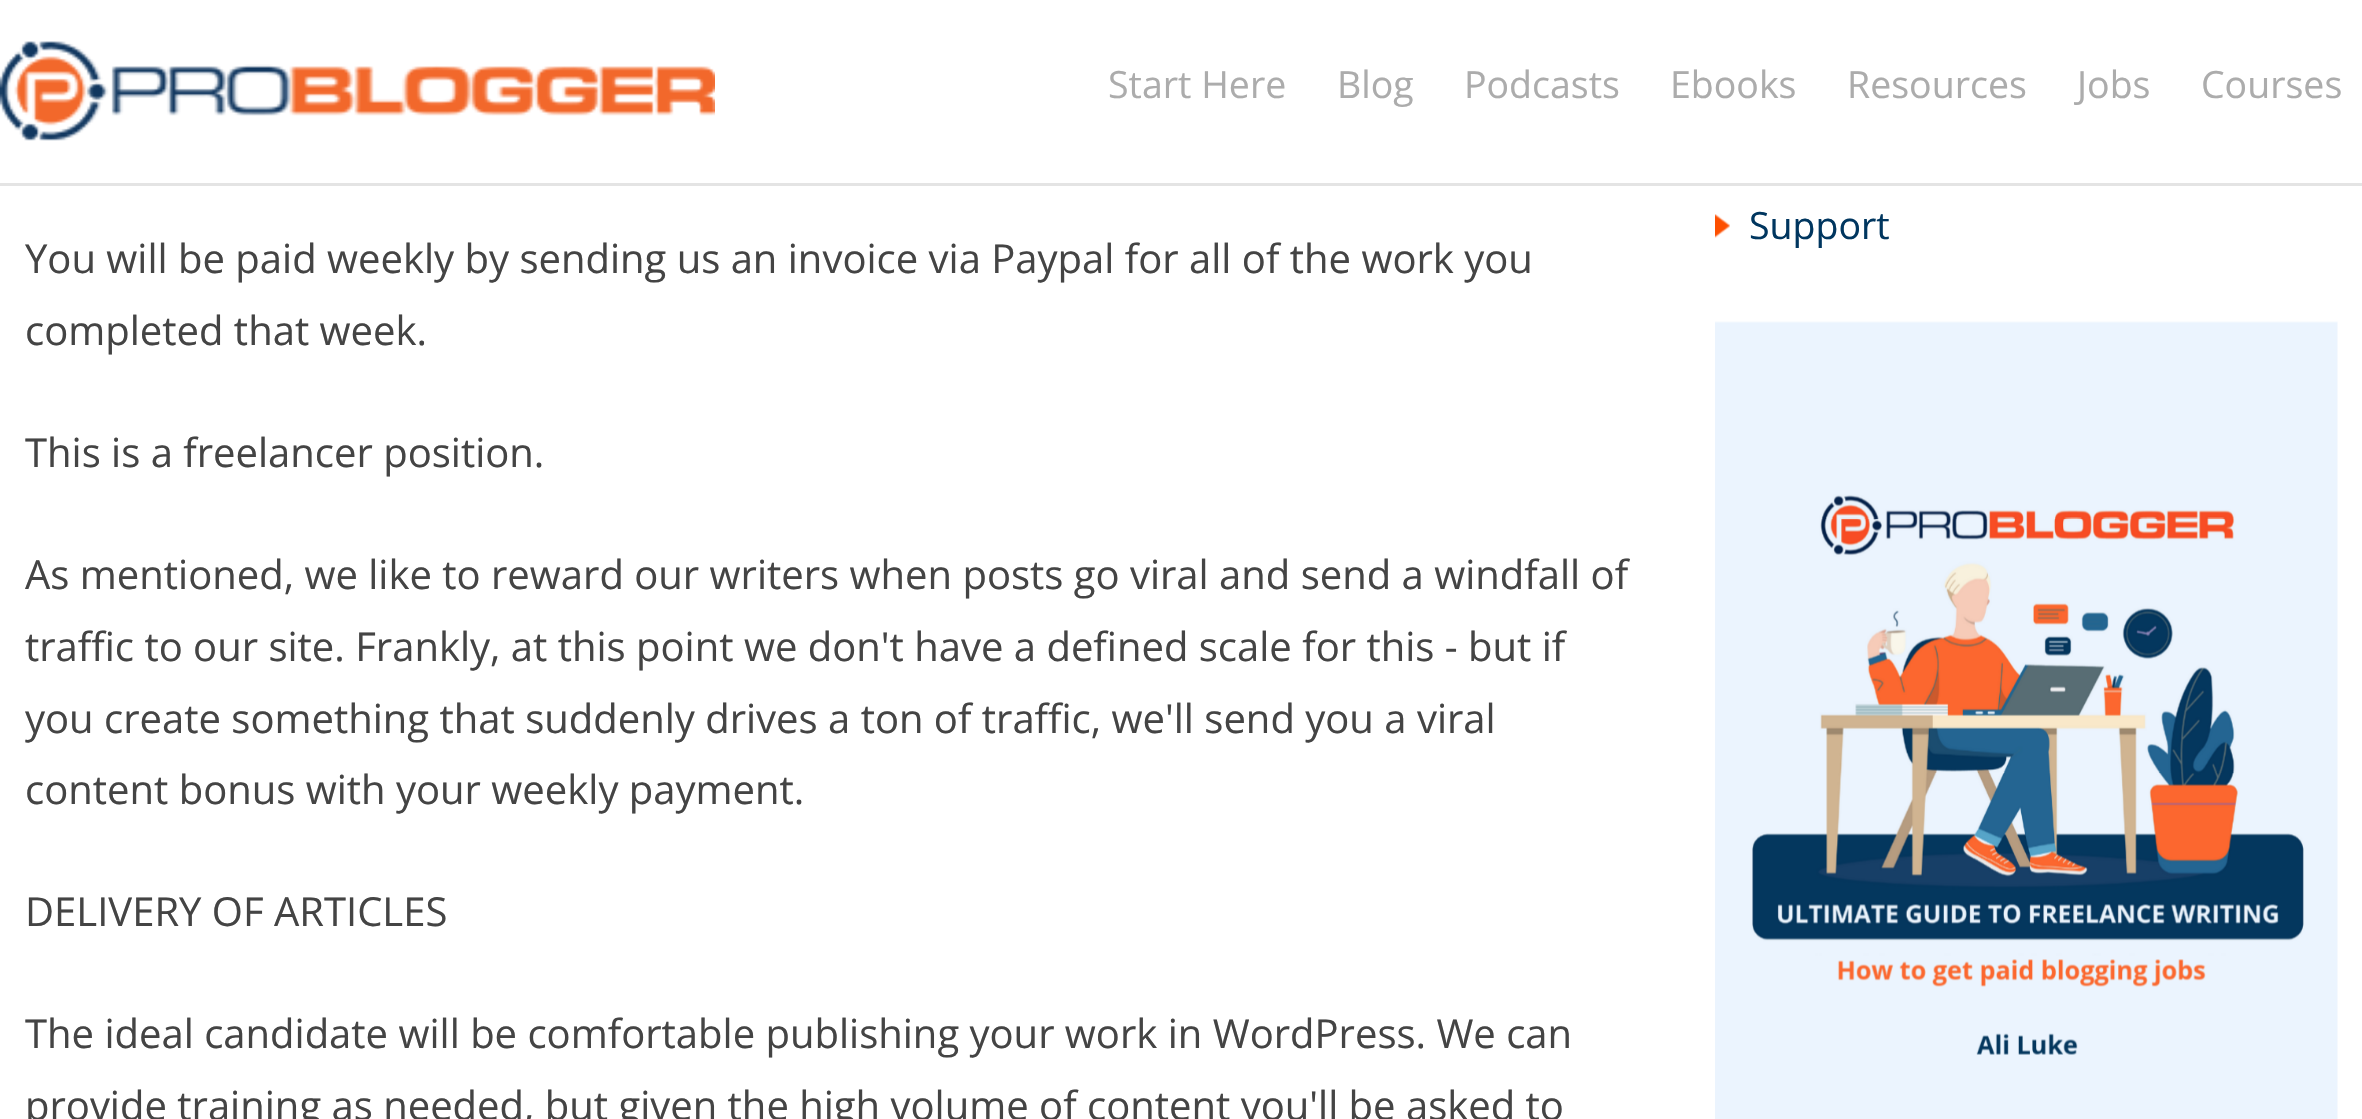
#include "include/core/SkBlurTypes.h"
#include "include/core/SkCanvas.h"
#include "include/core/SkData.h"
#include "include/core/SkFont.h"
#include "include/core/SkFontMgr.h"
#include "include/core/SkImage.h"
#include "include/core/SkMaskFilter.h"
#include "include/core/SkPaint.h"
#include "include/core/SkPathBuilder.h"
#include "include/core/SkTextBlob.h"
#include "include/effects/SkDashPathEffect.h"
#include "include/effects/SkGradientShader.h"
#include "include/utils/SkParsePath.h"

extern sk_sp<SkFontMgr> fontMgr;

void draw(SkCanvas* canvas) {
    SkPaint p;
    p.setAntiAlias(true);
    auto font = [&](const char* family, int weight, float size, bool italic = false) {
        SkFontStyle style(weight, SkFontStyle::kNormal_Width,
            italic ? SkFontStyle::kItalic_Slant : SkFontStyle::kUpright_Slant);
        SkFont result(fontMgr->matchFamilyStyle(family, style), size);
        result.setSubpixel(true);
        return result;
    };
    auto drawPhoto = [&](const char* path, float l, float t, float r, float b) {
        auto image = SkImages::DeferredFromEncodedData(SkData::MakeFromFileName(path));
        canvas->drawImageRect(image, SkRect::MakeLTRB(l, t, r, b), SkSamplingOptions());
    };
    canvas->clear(0xFFFFFFFF);
    p.setColor(0xFFE4E4E4);
    canvas->drawRect(SkRect::MakeLTRB(0, 183, 2362, 186), p);
    drawPhoto("media/1.png", 0, 41, 715, 141);
    auto font1 = font("Open Sans", 400, 37.5f);
    p.setColor(0xFFACACAC);
    {
        const struct { const char* s; float x, y; } items[] = {
            {"Start Here", 1108, 98},
            {"Blog", 1337, 98},
            {"Podcasts", 1464, 98},
            {"Ebooks", 1670, 98},
            {"Resources", 1847, 98},
            {"Jobs", 2077, 98},
            {"Courses", 2201, 98},
        };
        for (auto [s, x, y] : items) {
            canvas->drawString(s, x, y, font1, p);
        }
    }
    drawPhoto("media/2.png", 1715, 214, 1730, 238);
    p.setColor(0xFF00365F);
    canvas->drawString("Support", 1749, 239, font1, p);
    drawPhoto("media/3.png", 1715, 321, 2338, 1119);
    auto font2 = font("Open Sans", 400, 40);
    p.setColor(0xFF444444);
    {
        const struct { const char* s; float x, y; } items[] = {
            {"You will be paid weekly by sending us an invoice via Paypal for all of the work you", 25, 273},
            {"completed that week.", 25, 345},
            {"This is a freelancer position.", 25, 467},
            {"As mentioned, we like to reward our writers when posts go viral and send a windfall of", 25, 589},
            {"traffic to our site. Frankly, at this point we don't have a defined scale for this - but if", 25, 661},
            {"you create something that suddenly drives a ton of traffic, we'll send you a viral", 25, 733},
            {"content bonus with your weekly payment.", 25, 804},
            {"DELIVERY OF ARTICLES", 25, 926},
            {"The ideal candidate will be comfortable publishing your work in WordPress. We can", 25, 1048},
            {"provide training as needed, but given the high volume of content you'll be asked to", 25, 1120},
        };
        for (auto [s, x, y] : items) {
            canvas->drawString(s, x, y, font2, p);
        }
    }
}
